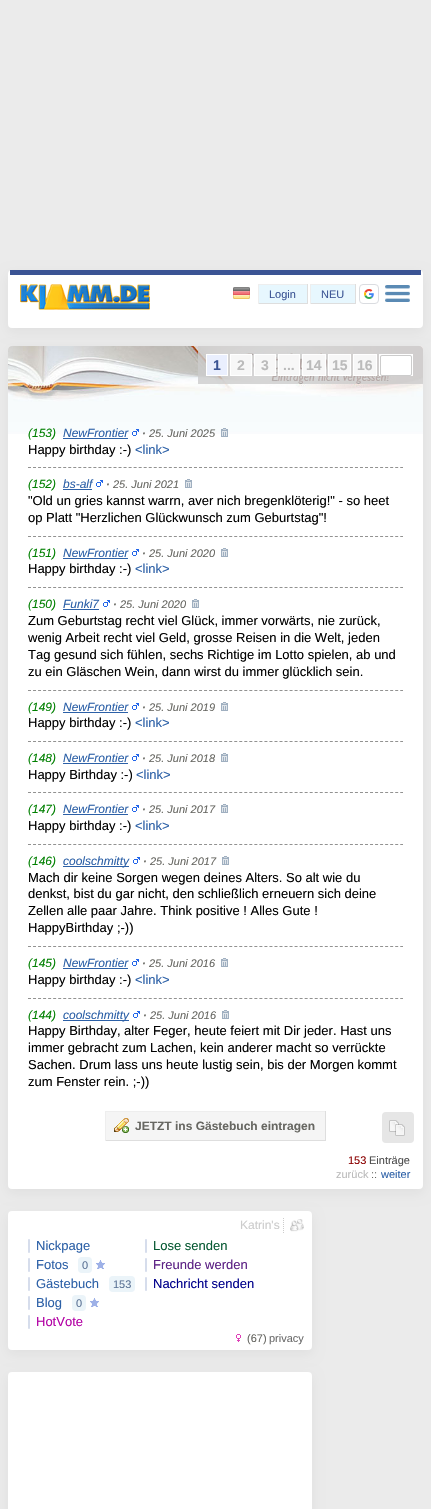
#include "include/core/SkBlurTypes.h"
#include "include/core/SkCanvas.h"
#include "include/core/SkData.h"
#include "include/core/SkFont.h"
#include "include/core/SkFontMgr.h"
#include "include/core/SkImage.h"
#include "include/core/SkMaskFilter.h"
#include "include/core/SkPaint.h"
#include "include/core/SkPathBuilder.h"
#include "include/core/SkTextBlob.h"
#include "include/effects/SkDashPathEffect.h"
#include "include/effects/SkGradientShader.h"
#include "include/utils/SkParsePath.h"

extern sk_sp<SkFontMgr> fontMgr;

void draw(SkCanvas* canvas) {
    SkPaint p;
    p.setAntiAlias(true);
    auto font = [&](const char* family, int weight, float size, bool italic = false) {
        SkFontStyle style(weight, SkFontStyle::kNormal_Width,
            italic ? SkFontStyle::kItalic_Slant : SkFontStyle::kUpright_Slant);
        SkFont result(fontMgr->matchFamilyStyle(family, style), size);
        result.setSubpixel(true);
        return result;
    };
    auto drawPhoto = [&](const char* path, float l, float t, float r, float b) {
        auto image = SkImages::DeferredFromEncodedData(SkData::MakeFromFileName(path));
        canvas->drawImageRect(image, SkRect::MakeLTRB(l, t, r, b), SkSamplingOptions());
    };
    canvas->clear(0xFFEBEBEB);
    p.setColor(0x0D000000);
    p.setMaskFilter(SkMaskFilter::MakeBlur(kNormal_SkBlurStyle, 6));
    canvas->drawRoundRect(SkRect::MakeLTRB(8, 274, 423, 332), 4, 4, p);
    p.setMaskFilter(nullptr);
    p.setColor(0xFFFFFFFF);
    canvas->drawRoundRect(SkRect::MakeLTRB(8, 270, 423, 328), 4, 4, p);
    p.setColor(0xFF3B5494);
    canvas->drawRect(SkRect::MakeLTRB(10, 270, 421, 275), p);
    drawPhoto("media/1.png", 20, 284, 150, 310);
    drawPhoto("media/2.png", 233, 287, 250, 299);
    {
        const struct { float l, t, r, b; SkColor color; } items[] = {
            {259, 285, 307, 303, 0xFFE7F7FE},
            {258, 284, 308, 285, 0xFFEEEEEE},
            {307, 284, 308, 304, 0xFFDEDEDE},
            {258, 303, 308, 304, 0xFFDEDEDE},
            {258, 284, 259, 304, 0xFFEEEEEE},
        };
        for (auto [l, t, r, b, color] : items) {
            p.setColor(color);
            canvas->drawRect(SkRect::MakeLTRB(l, t, r, b), p);
        }
    }
    auto font1 = font("Liberation Sans", 400, 11);
    p.setColor(0xFF3B5494);
    canvas->drawString("Login", 269, 298, font1, p);
    {
        const struct { float l, t, r, b; SkColor color; } items[] = {
            {311, 285, 355, 303, 0xFFE7F7FE},
            {310, 284, 356, 285, 0xFFEEEEEE},
            {355, 284, 356, 304, 0xFFDEDEDE},
            {310, 303, 356, 304, 0xFFDEDEDE},
            {310, 284, 311, 304, 0xFFEEEEEE},
        };
        for (auto [l, t, r, b, color] : items) {
            p.setColor(color);
            canvas->drawRect(SkRect::MakeLTRB(l, t, r, b), p);
        }
    }
    p.setColor(0xFF3B5494);
    canvas->drawString("NEU", 321, 298, font1, p);
    p.setStyle(SkPaint::kStroke_Style);
    p.setStrokeWidth(1);
    p.setColor(0xFFDADCE0);
    canvas->drawRoundRect(SkRect::MakeLTRB(359.5f, 284.5f, 378.5f, 303.5f), 3.5f, 3.5f, p);
    drawPhoto("media/3.png", 364, 289, 374, 299);
    drawPhoto("media/4.png", 385, 285, 410, 302);
    p.setStyle(SkPaint::kFill_Style);
    p.setColor(0x0D000000);
    p.setMaskFilter(SkMaskFilter::MakeBlur(kNormal_SkBlurStyle, 6));
    canvas->drawRoundRect(SkRect::MakeLTRB(8, 350, 423, 1193), 4, 4, p);
    p.setMaskFilter(nullptr);
    p.setColor(0xFFFFFFFF);
    canvas->drawRoundRect(SkRect::MakeLTRB(8, 346, 423, 1189), 4, 4, p);
    drawPhoto("media/5.png", 8, 346, 423, 434);
    p.setColor(0xCCCCCCCC);
    canvas->drawPath(SkPathBuilder().moveTo(198, 346).lineTo(419, 346).cubicTo(421, 346, 423, 348, 423, 350).lineTo(423, 384).lineTo(198, 384).close().detach(), p);
    p.setColor(0xFFEAEFFE);
    canvas->drawRect(SkRect::MakeLTRB(206.5f, 354.5f, 227.5f, 375.5f), p);
    p.setStyle(SkPaint::kStroke_Style);
    p.setColor(0xFFFFFFFF);
    canvas->drawRect(SkRect::MakeLTRB(206.5f, 354.5f, 227.5f, 375.5f), p);
    auto font2 = font("Liberation Sans", 700, 14);
    p.setStyle(SkPaint::kFill_Style);
    p.setColor(0xFF3B5494);
    canvas->drawString("1", 213, 370, font2, p);
    p.setColor(0xFFF7F7F7);
    canvas->drawRect(SkRect::MakeLTRB(230.5f, 354.5f, 251.5f, 375.5f), p);
    p.setStyle(SkPaint::kStroke_Style);
    p.setColor(0xFFFFFFFF);
    canvas->drawRect(SkRect::MakeLTRB(230.5f, 354.5f, 251.5f, 375.5f), p);
    p.setStyle(SkPaint::kFill_Style);
    p.setColor(0xFFBBBBBB);
    canvas->drawString("2", 237, 370, font2, p);
    p.setColor(0xFFF7F7F7);
    canvas->drawRect(SkRect::MakeLTRB(254.5f, 354.5f, 275.5f, 375.5f), p);
    p.setStyle(SkPaint::kStroke_Style);
    p.setColor(0xFFFFFFFF);
    canvas->drawRect(SkRect::MakeLTRB(254.5f, 354.5f, 275.5f, 375.5f), p);
    p.setStyle(SkPaint::kFill_Style);
    p.setColor(0xFFBBBBBB);
    canvas->drawString("3", 261, 370, font2, p);
    p.setColor(0xFFF7F7F7);
    canvas->drawRect(SkRect::MakeLTRB(278.5f, 354.5f, 299.5f, 375.5f), p);
    p.setStyle(SkPaint::kStroke_Style);
    p.setColor(0xFFFFFFFF);
    canvas->drawRect(SkRect::MakeLTRB(278.5f, 354.5f, 299.5f, 375.5f), p);
    p.setStyle(SkPaint::kFill_Style);
    p.setColor(0xFFBBBBBB);
    canvas->drawString("...", 283, 370, font2, p);
    p.setColor(0xFFF7F7F7);
    canvas->drawRect(SkRect::MakeLTRB(302.5f, 354.5f, 325.5f, 375.5f), p);
    p.setStyle(SkPaint::kStroke_Style);
    p.setColor(0xFFFFFFFF);
    canvas->drawRect(SkRect::MakeLTRB(302.5f, 354.5f, 325.5f, 375.5f), p);
    p.setStyle(SkPaint::kFill_Style);
    p.setColor(0xFFBBBBBB);
    canvas->drawString("14", 306, 370, font2, p);
    p.setColor(0xFFF7F7F7);
    canvas->drawRect(SkRect::MakeLTRB(328.5f, 354.5f, 350.5f, 375.5f), p);
    p.setStyle(SkPaint::kStroke_Style);
    p.setColor(0xFFFFFFFF);
    canvas->drawRect(SkRect::MakeLTRB(328.5f, 354.5f, 350.5f, 375.5f), p);
    p.setStyle(SkPaint::kFill_Style);
    p.setColor(0xFFBBBBBB);
    canvas->drawString("15", 332, 370, font2, p);
    p.setColor(0xFFF7F7F7);
    canvas->drawRect(SkRect::MakeLTRB(353.5f, 354.5f, 376.5f, 375.5f), p);
    p.setStyle(SkPaint::kStroke_Style);
    p.setColor(0xFFFFFFFF);
    canvas->drawRect(SkRect::MakeLTRB(353.5f, 354.5f, 376.5f, 375.5f), p);
    p.setStyle(SkPaint::kFill_Style);
    p.setColor(0xFFBBBBBB);
    canvas->drawString("16", 357, 370, font2, p);
    p.setColor(0xFFF7F7F7);
    canvas->drawRect(SkRect::MakeLTRB(379.5f, 354.5f, 412.5f, 375.5f), p);
    p.setStyle(SkPaint::kStroke_Style);
    p.setColor(0xFFFFFFFF);
    canvas->drawRect(SkRect::MakeLTRB(379.5f, 354.5f, 412.5f, 375.5f), p);
    p.setStyle(SkPaint::kFill_Style);
    canvas->drawRoundRect(SkRect::MakeLTRB(380.5f, 355.5f, 411.5f, 375.5f), 1.5f, 1.5f, p);
    p.setStyle(SkPaint::kStroke_Style);
    p.setColor(0xFFCCCCCC);
    canvas->drawRoundRect(SkRect::MakeLTRB(380.5f, 355.5f, 411.5f, 375.5f), 1.5f, 1.5f, p);
    auto font3 = font("Liberation Sans", 400, 12, true);
    p.setStyle(SkPaint::kFill_Style);
    p.setColor(0xFF008000);
    canvas->drawString("(153)", 28, 437, font3, p);
    p.setColor(0xFF2C60A7);
    canvas->drawString("NewFrontier", 63, 437, font3, p);
    canvas->drawRect(SkRect::MakeLTRB(63, 438, 128, 439), p);
    drawPhoto("media/6.png", 132, 429, 139, 436);
    auto font4 = font("Liberation Sans", 700, 11, true);
    p.setColor(0xFF676762);
    canvas->drawString("·", 142, 437, font4, p);
    auto font5 = font("Liberation Sans", 400, 11, true);
    canvas->drawString("25. Juni 2025", 149, 437, font5, p);
    drawPhoto("media/7.png", 221, 428, 228, 437);
    auto font6 = font("Liberation Sans", 400, 13);
    p.setColor(0xFF000000);
    canvas->drawString("Happy birthday :-)", 28, 454, font6, p);
    p.setColor(0xFF2C60A7);
    canvas->drawString("<link>", 135, 454, font6, p);
    p.setStyle(SkPaint::kStroke_Style);
    p.setColor(0xFF929291);
    p.setPathEffect(SkDashPathEffect::Make({{3, 2.03f}}, 0));
    canvas->drawPath(SkPathBuilder().moveTo(28, 467.5f).lineTo(403, 467.5f).detach(), p);
    p.setPathEffect(nullptr);
    p.setStyle(SkPaint::kFill_Style);
    p.setColor(0xFF008000);
    canvas->drawString("(152)", 28, 488, font3, p);
    p.setColor(0xFF2C60A7);
    canvas->drawString("bs-alf", 63, 488, font3, p);
    canvas->drawRect(SkRect::MakeLTRB(63, 489, 92, 490), p);
    drawPhoto("media/8.png", 96, 480, 103, 487);
    p.setColor(0xFF676762);
    canvas->drawString("·", 106, 488, font4, p);
    canvas->drawString("25. Juni 2021", 113, 488, font5, p);
    drawPhoto("media/9.png", 185, 479, 192, 488);
    p.setColor(0xFF000000);
    canvas->drawString("\"Old un gries kannst warrn, aver nich bregenklöterig!\" - so heet", 28, 505, font6, p);
    canvas->drawString("op Platt \"Herzlichen Glückwunsch zum Geburtstag\"!", 28, 522, font6, p);
    p.setStyle(SkPaint::kStroke_Style);
    p.setColor(0xFF929291);
    p.setPathEffect(SkDashPathEffect::Make({{3, 2.03f}}, 0));
    canvas->drawPath(SkPathBuilder().moveTo(28, 536.5f).lineTo(403, 536.5f).detach(), p);
    p.setPathEffect(nullptr);
    p.setStyle(SkPaint::kFill_Style);
    p.setColor(0xFF008000);
    canvas->drawString("(151)", 28, 557, font3, p);
    p.setColor(0xFF2C60A7);
    canvas->drawString("NewFrontier", 63, 557, font3, p);
    canvas->drawRect(SkRect::MakeLTRB(63, 558, 128, 559), p);
    drawPhoto("media/8.png", 132, 549, 139, 556);
    p.setColor(0xFF676762);
    canvas->drawString("·", 142, 557, font4, p);
    canvas->drawString("25. Juni 2020", 149, 557, font5, p);
    drawPhoto("media/9.png", 221, 548, 228, 557);
    p.setColor(0xFF000000);
    canvas->drawString("Happy birthday :-)", 28, 573, font6, p);
    p.setColor(0xFF2C60A7);
    canvas->drawString("<link>", 135, 573, font6, p);
    p.setStyle(SkPaint::kStroke_Style);
    p.setColor(0xFF929291);
    p.setPathEffect(SkDashPathEffect::Make({{3, 2.03f}}, 0));
    canvas->drawPath(SkPathBuilder().moveTo(28, 587.5f).lineTo(403, 587.5f).detach(), p);
    p.setPathEffect(nullptr);
    p.setStyle(SkPaint::kFill_Style);
    p.setColor(0xFF008000);
    canvas->drawString("(150)", 28, 608, font3, p);
    p.setColor(0xFF2C60A7);
    canvas->drawString("Funki7", 63, 608, font3, p);
    canvas->drawRect(SkRect::MakeLTRB(63, 609, 99, 610), p);
    drawPhoto("media/8.png", 103, 600, 110, 607);
    p.setColor(0xFF676762);
    canvas->drawString("·", 113, 608, font4, p);
    canvas->drawString("25. Juni 2020", 120, 608, font5, p);
    drawPhoto("media/9.png", 192, 599, 199, 608);
    p.setColor(0xFF000000);
    {
        const struct { const char* s; float x, y; } items[] = {
            {"Zum Geburtstag recht viel Glück, immer vorwärts, nie zurück,", 28, 625},
            {"wenig Arbeit recht viel Geld, grosse Reisen in die Welt, jeden", 28, 642},
            {"Tag gesund sich fühlen, sechs Richtige im Lotto spielen, ab und", 28, 659},
            {"zu ein Gläschen Wein, dann wirst du immer glücklich sein.", 28, 676},
        };
        for (auto [s, x, y] : items) {
            canvas->drawString(s, x, y, font6, p);
        }
    }
    p.setStyle(SkPaint::kStroke_Style);
    p.setColor(0xFF929291);
    p.setPathEffect(SkDashPathEffect::Make({{3, 2.03f}}, 0));
    canvas->drawPath(SkPathBuilder().moveTo(28, 690.5f).lineTo(403, 690.5f).detach(), p);
    p.setPathEffect(nullptr);
    p.setStyle(SkPaint::kFill_Style);
    p.setColor(0xFF008000);
    canvas->drawString("(149)", 28, 711, font3, p);
    p.setColor(0xFF2C60A7);
    canvas->drawString("NewFrontier", 63, 711, font3, p);
    canvas->drawRect(SkRect::MakeLTRB(63, 712, 128, 713), p);
    drawPhoto("media/8.png", 132, 703, 139, 710);
    p.setColor(0xFF676762);
    canvas->drawString("·", 142, 711, font4, p);
    canvas->drawString("25. Juni 2019", 149, 711, font5, p);
    drawPhoto("media/9.png", 221, 702, 228, 711);
    p.setColor(0xFF000000);
    canvas->drawString("Happy birthday :-)", 28, 727, font6, p);
    p.setColor(0xFF2C60A7);
    canvas->drawString("<link>", 135, 727, font6, p);
    p.setStyle(SkPaint::kStroke_Style);
    p.setColor(0xFF929291);
    p.setPathEffect(SkDashPathEffect::Make({{3, 2.03f}}, 0));
    canvas->drawPath(SkPathBuilder().moveTo(28, 741.5f).lineTo(403, 741.5f).detach(), p);
    p.setPathEffect(nullptr);
    p.setStyle(SkPaint::kFill_Style);
    p.setColor(0xFF008000);
    canvas->drawString("(148)", 28, 762, font3, p);
    p.setColor(0xFF2C60A7);
    canvas->drawString("NewFrontier", 63, 762, font3, p);
    canvas->drawRect(SkRect::MakeLTRB(63, 763, 128, 764), p);
    drawPhoto("media/8.png", 132, 754, 139, 761);
    p.setColor(0xFF676762);
    canvas->drawString("·", 142, 762, font4, p);
    canvas->drawString("25. Juni 2018", 149, 762, font5, p);
    drawPhoto("media/9.png", 221, 753, 228, 762);
    p.setColor(0xFF000000);
    canvas->drawString("Happy Birthday :-)", 28, 779, font6, p);
    p.setColor(0xFF2C60A7);
    canvas->drawString("<link>", 136, 779, font6, p);
    p.setStyle(SkPaint::kStroke_Style);
    p.setColor(0xFF929291);
    p.setPathEffect(SkDashPathEffect::Make({{3, 2.03f}}, 0));
    canvas->drawPath(SkPathBuilder().moveTo(28, 792.5f).lineTo(403, 792.5f).detach(), p);
    p.setPathEffect(nullptr);
    p.setStyle(SkPaint::kFill_Style);
    p.setColor(0xFF008000);
    canvas->drawString("(147)", 28, 813, font3, p);
    p.setColor(0xFF2C60A7);
    canvas->drawString("NewFrontier", 63, 813, font3, p);
    canvas->drawRect(SkRect::MakeLTRB(63, 814, 128, 815), p);
    drawPhoto("media/8.png", 132, 805, 139, 812);
    p.setColor(0xFF676762);
    canvas->drawString("·", 142, 813, font4, p);
    canvas->drawString("25. Juni 2017", 149, 813, font5, p);
    drawPhoto("media/9.png", 221, 804, 228, 813);
    p.setColor(0xFF000000);
    canvas->drawString("Happy birthday :-)", 28, 830, font6, p);
    p.setColor(0xFF2C60A7);
    canvas->drawString("<link>", 135, 830, font6, p);
    p.setStyle(SkPaint::kStroke_Style);
    p.setColor(0xFF929291);
    p.setPathEffect(SkDashPathEffect::Make({{3, 2.03f}}, 0));
    canvas->drawPath(SkPathBuilder().moveTo(28, 844.5f).lineTo(403, 844.5f).detach(), p);
    p.setPathEffect(nullptr);
    p.setStyle(SkPaint::kFill_Style);
    p.setColor(0xFF008000);
    canvas->drawString("(146)", 28, 865, font3, p);
    p.setColor(0xFF2C60A7);
    canvas->drawRect(SkRect::MakeLTRB(63, 866, 129, 867), p);
    canvas->drawString("coolschmitty", 63, 865, font3, p);
    drawPhoto("media/8.png", 133, 857, 140, 864);
    p.setColor(0xFF676762);
    canvas->drawString("·", 143, 865, font4, p);
    canvas->drawString("25. Juni 2017", 150, 865, font5, p);
    drawPhoto("media/9.png", 222, 856, 229, 865);
    p.setColor(0xFF000000);
    {
        const struct { const char* s; float x, y; } items[] = {
            {"Mach dir keine Sorgen wegen deines Alters. So alt wie du", 28, 882},
            {"denkst, bist du gar nicht, den schließlich erneuern sich deine", 28, 898},
            {"Zellen alle paar Jahre. Think positive ! Alles Gute !", 28, 915},
            {"HappyBirthday ;-))", 28, 932},
        };
        for (auto [s, x, y] : items) {
            canvas->drawString(s, x, y, font6, p);
        }
    }
    p.setStyle(SkPaint::kStroke_Style);
    p.setColor(0xFF929291);
    p.setPathEffect(SkDashPathEffect::Make({{3, 2.03f}}, 0));
    canvas->drawPath(SkPathBuilder().moveTo(28, 946.5f).lineTo(403, 946.5f).detach(), p);
    p.setPathEffect(nullptr);
    p.setStyle(SkPaint::kFill_Style);
    p.setColor(0xFF008000);
    canvas->drawString("(145)", 28, 967, font3, p);
    p.setColor(0xFF2C60A7);
    canvas->drawString("NewFrontier", 63, 967, font3, p);
    canvas->drawRect(SkRect::MakeLTRB(63, 968, 128, 969), p);
    drawPhoto("media/8.png", 132, 959, 139, 966);
    p.setColor(0xFF676762);
    canvas->drawString("·", 142, 967, font4, p);
    canvas->drawString("25. Juni 2016", 149, 967, font5, p);
    drawPhoto("media/9.png", 221, 958, 228, 967);
    p.setColor(0xFF000000);
    canvas->drawString("Happy birthday :-)", 28, 984, font6, p);
    p.setColor(0xFF2C60A7);
    canvas->drawString("<link>", 135, 984, font6, p);
    p.setStyle(SkPaint::kStroke_Style);
    p.setColor(0xFF929291);
    p.setPathEffect(SkDashPathEffect::Make({{3, 2.03f}}, 0));
    canvas->drawPath(SkPathBuilder().moveTo(28, 998.5f).lineTo(403, 998.5f).detach(), p);
    p.setPathEffect(nullptr);
    p.setStyle(SkPaint::kFill_Style);
    p.setColor(0xFF008000);
    canvas->drawString("(144)", 28, 1019, font3, p);
    p.setColor(0xFF2C60A7);
    canvas->drawRect(SkRect::MakeLTRB(63, 1020, 129, 1021), p);
    canvas->drawString("coolschmitty", 63, 1019, font3, p);
    drawPhoto("media/8.png", 133, 1011, 140, 1018);
    p.setColor(0xFF676762);
    canvas->drawString("·", 143, 1019, font4, p);
    canvas->drawString("25. Juni 2016", 150, 1019, font5, p);
    drawPhoto("media/9.png", 222, 1010, 229, 1019);
    p.setColor(0xFF000000);
    {
        const struct { const char* s; float x, y; } items[] = {
            {"Happy Birthday, alter Feger, heute feiert mit Dir jeder. Hast uns", 28, 1035},
            {"immer gebracht zum Lachen, kein anderer macht so verrückte", 28, 1052},
            {"Sachen. Drum lass uns heute lustig sein, bis der Morgen kommt", 28, 1069},
            {"zum Fenster rein. ;-))", 28, 1086},
        };
        for (auto [s, x, y] : items) {
            canvas->drawString(s, x, y, font6, p);
        }
    }
    {
        const struct { float l, t, r, b; SkColor color; } items[] = {
            {106, 1112, 325, 1140, 0xFFF5F5F5},
            {105, 1111, 326, 1112, 0xFFEEEEEE},
            {325, 1111, 326, 1141, 0xFFDEDEDE},
            {105, 1140, 326, 1141, 0xFFDEDEDE},
            {105, 1111, 106, 1141, 0xFFEEEEEE},
        };
        for (auto [l, t, r, b, color] : items) {
            p.setColor(color);
            canvas->drawRect(SkRect::MakeLTRB(l, t, r, b), p);
        }
    }
    drawPhoto("media/10.png", 114, 1118, 129, 1133);
    auto font7 = font("Liberation Sans", 700, 12);
    p.setColor(0xFF676762);
    canvas->drawString("JETZT ins Gästebuch eintragen", 135, 1130, font7, p);
    p.setColor(0xFF8B0000);
    canvas->drawString("153", 348, 1164, font1, p);
    p.setColor(0xFF4C4C4C);
    canvas->drawString("Einträge", 369, 1164, font1, p);
    p.setColor(0xFFBBBBBB);
    canvas->drawString("zurück", 336, 1178, font1, p);
    p.setColor(0xFF676762);
    canvas->drawString("::", 371, 1178, font1, p);
    p.setColor(0xFF2C60A7);
    canvas->drawString("weiter", 381, 1178, font1, p);
    p.setColor(0xFFE6E6E6);
    canvas->drawRoundRect(SkRect::MakeLTRB(382, 1112, 414, 1143), 4, 4, p);
    drawPhoto("media/11.png", 389, 1120, 405, 1136);
    p.setColor(0x0D000000);
    p.setMaskFilter(SkMaskFilter::MakeBlur(kNormal_SkBlurStyle, 6));
    canvas->drawRoundRect(SkRect::MakeLTRB(8, 1215, 312, 1354), 4, 4, p);
    p.setMaskFilter(nullptr);
    p.setColor(0xFFFFFFFF);
    canvas->drawRoundRect(SkRect::MakeLTRB(8, 1211, 312, 1350), 4, 4, p);
    p.setStyle(SkPaint::kStroke_Style);
    p.setColor(0xFFCCCCCC);
    p.setPathEffect(SkDashPathEffect::Make({{1, 1}}, 0));
    canvas->drawPath(SkPathBuilder().moveTo(283.5f, 1218).lineTo(283.5f, 1234).detach(), p);
    p.setPathEffect(nullptr);
    auto font8 = font("Liberation Sans", 400, 12);
    p.setStyle(SkPaint::kFill_Style);
    canvas->drawString("Katrin's", 240, 1229, font8, p);
    drawPhoto("media/12.png", 290, 1219, 304, 1232);
    p.setColor(0xFFD6DDEC);
    canvas->drawRoundRect(SkRect::MakeLTRB(28, 1239, 30, 1253), 1, 1, p);
    p.setColor(0xFF2C60A7);
    canvas->drawString("Nickpage", 36, 1250, font6, p);
    p.setColor(0xFFD6DDEC);
    canvas->drawRoundRect(SkRect::MakeLTRB(28, 1258, 30, 1272), 1, 1, p);
    p.setColor(0xFF2C60A7);
    canvas->drawString("Fotos", 36, 1269, font6, p);
    p.setColor(0xFFEBF4F9);
    canvas->drawRoundRect(SkRect::MakeLTRB(78, 1257, 92, 1273), 4, 4, p);
    p.setColor(0xFF5D7497);
    canvas->drawString("0", 82, 1269, font1, p);
    drawPhoto("media/13.png", 96, 1260, 105, 1269);
    p.setColor(0xFFD6DDEC);
    canvas->drawRoundRect(SkRect::MakeLTRB(28, 1277, 30, 1291), 1, 1, p);
    p.setColor(0xFF2C60A7);
    canvas->drawString("Gästebuch", 36, 1288, font6, p);
    p.setColor(0xFFEBF4F9);
    canvas->drawRoundRect(SkRect::MakeLTRB(109, 1276, 135, 1292), 4, 4, p);
    p.setColor(0xFF5D7497);
    canvas->drawString("153", 113, 1288, font1, p);
    p.setColor(0xFFD6DDEC);
    canvas->drawRoundRect(SkRect::MakeLTRB(28, 1296, 30, 1310), 1, 1, p);
    p.setColor(0xFF2C60A7);
    canvas->drawString("Blog", 36, 1307, font6, p);
    p.setColor(0xFFEBF4F9);
    canvas->drawRoundRect(SkRect::MakeLTRB(72, 1295, 86, 1311), 4, 4, p);
    p.setColor(0xFF5D7497);
    canvas->drawString("0", 76, 1307, font1, p);
    drawPhoto("media/13.png", 90, 1298, 99, 1307);
    p.setColor(0xFFD6DDEC);
    canvas->drawRoundRect(SkRect::MakeLTRB(28, 1315, 30, 1329), 1, 1, p);
    p.setColor(0xFFB303A5);
    canvas->drawString("HotVote", 36, 1326, font6, p);
    p.setColor(0xFFD6DDEC);
    canvas->drawRoundRect(SkRect::MakeLTRB(145, 1239, 147, 1253), 1, 1, p);
    p.setColor(0xFF085A34);
    canvas->drawString("Lose senden", 153, 1250, font6, p);
    p.setColor(0xFFD6DDEC);
    canvas->drawRoundRect(SkRect::MakeLTRB(145, 1258, 147, 1272), 1, 1, p);
    p.setColor(0xFF5B2084);
    canvas->drawString("Freunde werden", 153, 1269, font6, p);
    p.setColor(0xFFD6DDEC);
    canvas->drawRoundRect(SkRect::MakeLTRB(145, 1277, 147, 1291), 1, 1, p);
    p.setColor(0xFF00008B);
    canvas->drawString("Nachricht senden", 153, 1288, font6, p);
    drawPhoto("media/14.png", 236, 1334, 241, 1342);
    p.setColor(0xFF676762);
    canvas->drawString("(67)", 247, 1342, font1, p);
    p.setColor(0xFF6C6C6C);
    canvas->drawString("privacy", 269, 1342, font1, p);
    p.setColor(0x0D000000);
    p.setMaskFilter(SkMaskFilter::MakeBlur(kNormal_SkBlurStyle, 6));
    canvas->drawRoundRect(SkRect::MakeLTRB(8, 1376, 312, 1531), 4, 4, p);
    p.setMaskFilter(nullptr);
    p.setColor(0xFFFFFFFF);
    canvas->drawRoundRect(SkRect::MakeLTRB(8, 1372, 312, 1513), 4, 4, p);
}
